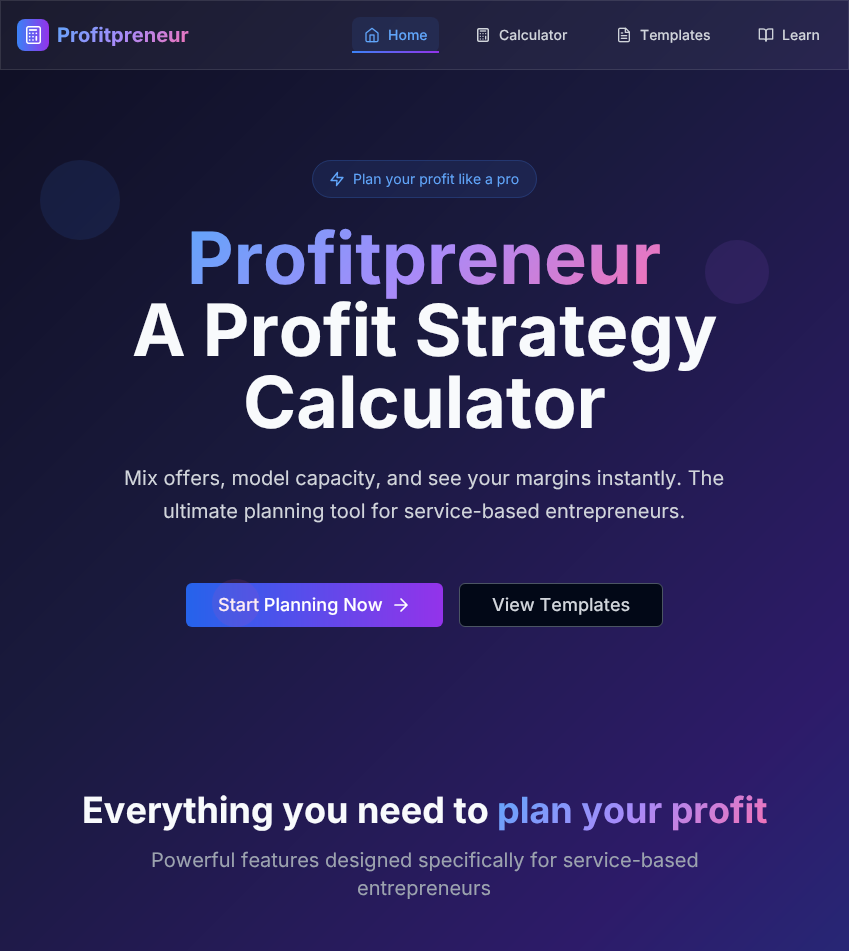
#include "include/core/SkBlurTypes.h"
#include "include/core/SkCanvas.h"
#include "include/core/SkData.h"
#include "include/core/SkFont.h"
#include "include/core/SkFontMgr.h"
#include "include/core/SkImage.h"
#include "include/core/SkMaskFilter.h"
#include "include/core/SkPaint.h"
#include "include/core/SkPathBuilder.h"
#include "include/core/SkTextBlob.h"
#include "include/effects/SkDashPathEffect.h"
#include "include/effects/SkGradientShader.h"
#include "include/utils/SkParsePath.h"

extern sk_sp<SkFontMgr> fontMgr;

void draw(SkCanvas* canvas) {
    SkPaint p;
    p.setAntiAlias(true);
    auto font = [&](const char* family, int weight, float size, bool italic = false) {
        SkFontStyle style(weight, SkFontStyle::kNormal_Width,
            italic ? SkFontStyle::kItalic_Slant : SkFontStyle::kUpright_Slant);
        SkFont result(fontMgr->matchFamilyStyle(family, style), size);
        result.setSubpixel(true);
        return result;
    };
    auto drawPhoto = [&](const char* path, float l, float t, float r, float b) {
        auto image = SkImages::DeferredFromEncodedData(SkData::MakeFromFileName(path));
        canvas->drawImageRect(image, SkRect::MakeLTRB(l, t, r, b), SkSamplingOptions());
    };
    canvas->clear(0xFFFFFFFF);
    {
        const SkColor colors[] = {0xFF0F0F23, 0xFF1A1A3E, 0xFF2D1B69, 0xFF1E3A8A, 0xFF1E40AF};
        const float stops[] = {0, 0.25f, 0.5f, 0.75f, 1};
        const SkPoint ends[] = {{-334, 334}, {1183, 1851}};
        p.setShader(SkGradientShader::MakeLinear(ends, colors, stops, 5, SkTileMode::kClamp));
        p.setAlpha(255);
    }
    canvas->drawRect(SkRect::MakeLTRB(0, 70, 849, 951), p);
    {
        const SkColor colors[] = {0xFF1B1B2E, 0xFF252548, 0xFF382671, 0xFF294490, 0xFF294AB3};
        const float stops[] = {0, 0.25f, 0.5f, 0.75f, 1};
        const SkPoint ends[] = {{-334, 334}, {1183, 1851}};
        p.setShader(SkGradientShader::MakeLinear(ends, colors, stops, 5, SkTileMode::kClamp));
        p.setAlpha(255);
    }
    canvas->drawRect(SkRect::MakeLTRB(0, 0, 849, 70), p);
    p.setStyle(SkPaint::kStroke_Style);
    p.setStrokeWidth(1);
    p.setShader(nullptr);
    p.setColor(0x1AFFFFFF);
    canvas->drawRect(SkRect::MakeLTRB(0.5f, 0.5f, 848.5f, 69.5f), p);
    p.setStyle(SkPaint::kFill_Style);
    {
        const SkColor colors[] = {0xFF3B82F6, 0xFF9333EA};
        const float stops[] = {0, 1};
        const SkPoint ends[] = {{17, 35}, {49, 35}};
        p.setShader(SkGradientShader::MakeLinear(ends, colors, stops, 2, SkTileMode::kClamp));
        p.setAlpha(255);
    }
    canvas->drawRoundRect(SkRect::MakeLTRB(17, 19, 49, 51), 8, 8, p);
    drawPhoto("media/1.png", 26, 26, 41, 44);
    auto font1 = font("Inter", 700, 20);
    {
        const SkColor colors[] = {0xFF60A5FA, 0xFFA78BFA, 0xFFF472B6};
        const float stops[] = {0, 0.5f, 1};
        const SkPoint ends[] = {{83, -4.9f}, {163, 75}};
        p.setShader(SkGradientShader::MakeLinear(ends, colors, stops, 3, SkTileMode::kClamp));
        p.setAlpha(255);
    }
    canvas->drawString("Profitpreneur", 57, 42, font1, p);
    p.setShader(nullptr);
    p.setColor(0x1A3B82F6);
    canvas->drawRoundRect(SkRect::MakeLTRB(352, 17, 439, 53), 8, 8, p);
    drawPhoto("media/2.png", 365, 27, 379, 43);
    auto font2 = font("Inter", 500, 14);
    p.setColor(0xFF60A5FA);
    canvas->drawString("Home", 388, 40, font2, p);
    {
        const SkColor colors[] = {0xFF3B82F6, 0xFF9333EA};
        const float stops[] = {0, 1};
        const SkPoint ends[] = {{352, 52}, {439, 52}};
        p.setShader(SkGradientShader::MakeLinear(ends, colors, stops, 2, SkTileMode::kClamp));
        p.setAlpha(255);
    }
    canvas->drawRect(SkRect::MakeLTRB(352, 51, 439, 53), p);
    drawPhoto("media/3.png", 477, 28, 489, 42);
    p.setShader(nullptr);
    p.setColor(0xFFD1D5DB);
    canvas->drawString("Calculator", 499, 40, font2, p);
    drawPhoto("media/4.png", 618, 27, 630, 43);
    canvas->drawString("Templates", 640, 40, font2, p);
    drawPhoto("media/5.png", 758, 28, 774, 42);
    canvas->drawString("Learn", 782, 40, font2, p);
    p.setColor(0x1A3B82F6);
    canvas->drawCircle(80, 200, 40, p);
    canvas->drawRoundRect(SkRect::MakeLTRB(312, 160, 537, 198), 19, 19, p);
    p.setStyle(SkPaint::kStroke_Style);
    p.setColor(0x333B82F6);
    canvas->drawRoundRect(SkRect::MakeLTRB(312.5f, 160.5f, 536.5f, 197.5f), 18.5f, 18.5f, p);
    p.setStrokeWidth(1.3f);
    p.setStrokeCap(SkPaint::kRound_Cap);
    p.setStrokeJoin(SkPaint::kRound_Join);
    p.setColor(0xFF60A5FA);
    canvas->drawPath(SkPathBuilder().moveTo(337.5f, 172.5f).lineTo(331, 180.5f).lineTo(337, 180.5f).lineTo(336.5f, 185.5f).lineTo(343, 177.5f).lineTo(337, 177.5f).close().detach(), p);
    auto font3 = font("Inter", 400, 14);
    p.setStyle(SkPaint::kFill_Style);
    canvas->drawString("Plan your profit like a pro", 353, 184, font3, p);
    auto font4 = font("Inter", 700, 72);
    {
        const SkColor colors[] = {0xFF60A5FA, 0xFFA78BFA, 0xFFF472B6};
        const float stops[] = {0, 0.5f, 1};
        const SkPoint ends[] = {{284, 117}, {565, 398}};
        p.setShader(SkGradientShader::MakeLinear(ends, colors, stops, 3, SkTileMode::kClamp));
        p.setAlpha(255);
    }
    canvas->drawString("Profitpreneur", 187, 284, font4, p);
    p.setShader(nullptr);
    p.setColor(0xFFF8FAFC);
    canvas->drawString("A Profit Strategy", 132, 356, font4, p);
    canvas->drawString("Calculator", 243, 428, font4, p);
    auto font5 = font("Inter", 400, 20);
    p.setColor(0xFFD1D5DB);
    canvas->drawString("Mix offers, model capacity, and see your margins instantly. The", 124, 485, font5, p);
    canvas->drawString("ultimate planning tool for service-based entrepreneurs.", 163, 518, font5, p);
    {
        const SkColor colors[] = {0xFF2563EB, 0xFF9333EA};
        const float stops[] = {0, 1};
        const SkPoint ends[] = {{186, 605}, {443, 605}};
        p.setShader(SkGradientShader::MakeLinear(ends, colors, stops, 2, SkTileMode::kClamp));
        p.setAlpha(255);
    }
    canvas->drawRoundRect(SkRect::MakeLTRB(186, 583, 443, 627), 6, 6, p);
    auto font6 = font("Inter", 500, 18);
    p.setShader(nullptr);
    p.setColor(0xFFFFFFFF);
    canvas->drawString("Start Planning Now", 218, 611, font6, p);
    p.setStyle(SkPaint::kStroke_Style);
    p.setStrokeWidth(1.7f);
    canvas->drawPath(SkPathBuilder().moveTo(395, 605).lineTo(407, 605).moveTo(401, 599).lineTo(407, 605).lineTo(401, 611).detach(), p);
    p.setStyle(SkPaint::kFill_Style);
    p.setColor(0xFF020817);
    canvas->drawRoundRect(SkRect::MakeLTRB(459.5f, 583.5f, 662.5f, 626.5f), 5.5f, 5.5f, p);
    p.setStyle(SkPaint::kStroke_Style);
    p.setStrokeWidth(1);
    p.setStrokeCap(SkPaint::kButt_Cap);
    p.setStrokeJoin(SkPaint::kMiter_Join);
    p.setColor(0xFF4B5563);
    canvas->drawRoundRect(SkRect::MakeLTRB(459.5f, 583.5f, 662.5f, 626.5f), 5.5f, 5.5f, p);
    p.setStyle(SkPaint::kFill_Style);
    p.setColor(0xFFD1D5DB);
    canvas->drawString("View Templates", 492, 611, font6, p);
    p.setColor(0x1AA855F7);
    canvas->drawCircle(737, 272, 32, p);
    p.setColor(0x1AEC4899);
    canvas->drawCircle(236, 603, 24, p);
    auto font7 = font("Inter", 700, 36);
    p.setColor(0xFFF8FAFC);
    canvas->drawString("Everything you need to", 82, 823, font7, p);
    {
        const SkColor colors[] = {0xFF60A5FA, 0xFFA78BFA, 0xFFF472B6};
        const float stops[] = {0, 0.5f, 1};
        const SkPoint ends[] = {{554, 732}, {711, 889}};
        p.setShader(SkGradientShader::MakeLinear(ends, colors, stops, 3, SkTileMode::kClamp));
        p.setAlpha(255);
    }
    canvas->drawString("plan your profit", 497, 823, font7, p);
    p.setShader(nullptr);
    p.setColor(0xFF9CA3AF);
    canvas->drawString("Powerful features designed specifically for service-based", 151, 867, font5, p);
    canvas->drawString("entrepreneurs", 357, 895, font5, p);
}
